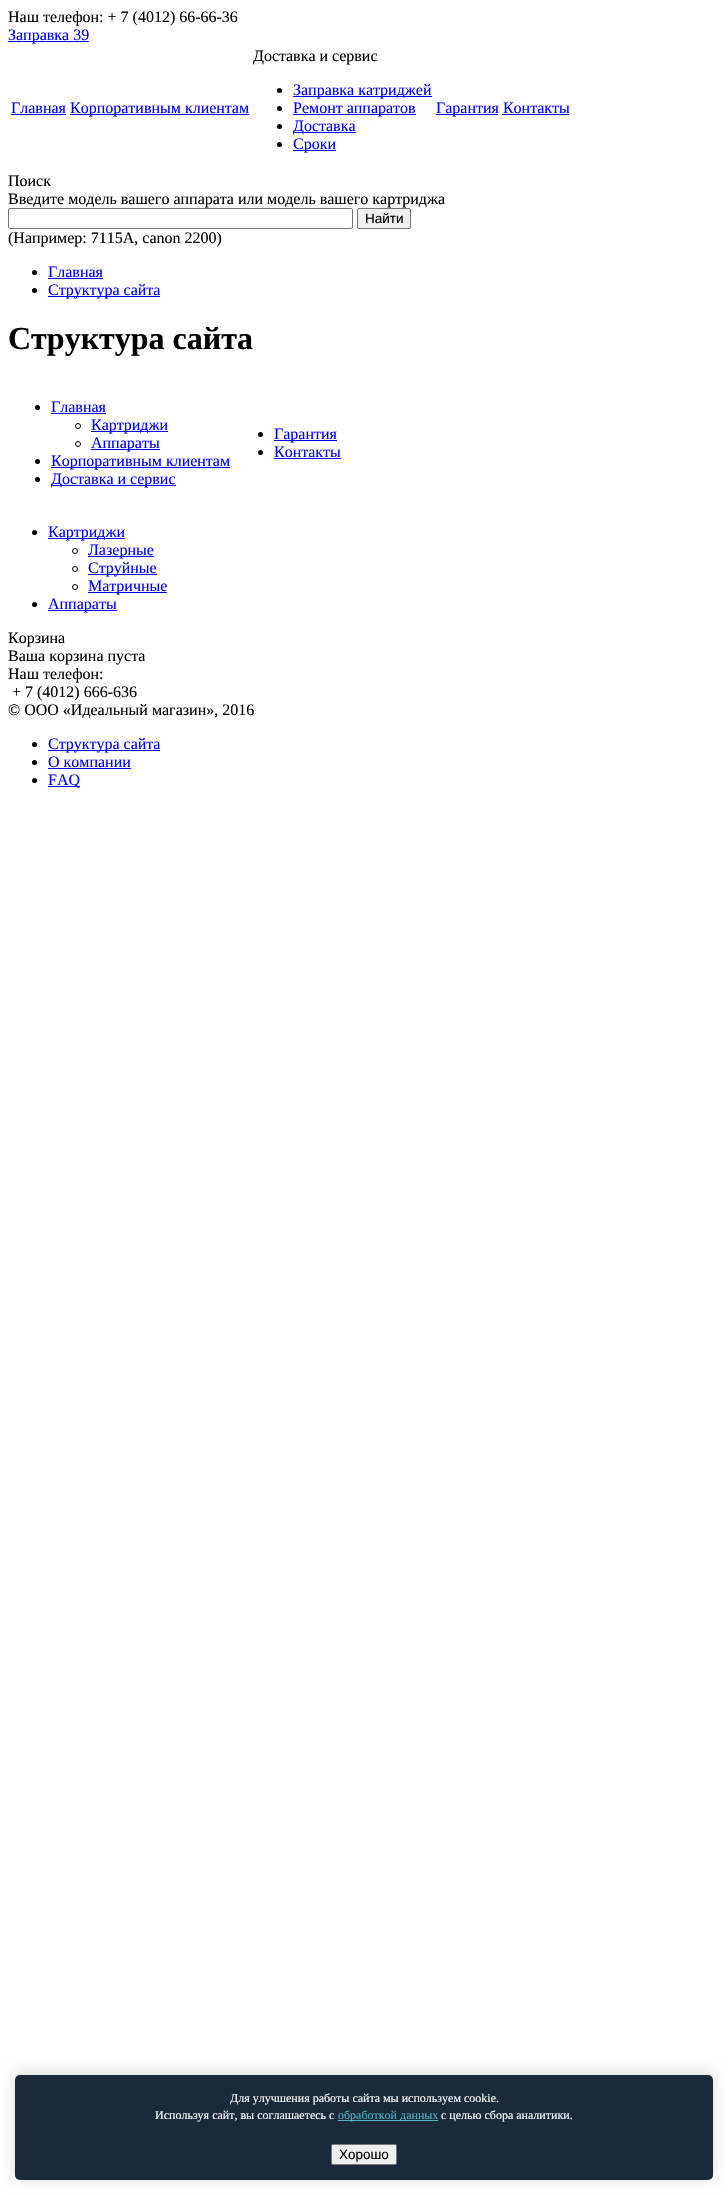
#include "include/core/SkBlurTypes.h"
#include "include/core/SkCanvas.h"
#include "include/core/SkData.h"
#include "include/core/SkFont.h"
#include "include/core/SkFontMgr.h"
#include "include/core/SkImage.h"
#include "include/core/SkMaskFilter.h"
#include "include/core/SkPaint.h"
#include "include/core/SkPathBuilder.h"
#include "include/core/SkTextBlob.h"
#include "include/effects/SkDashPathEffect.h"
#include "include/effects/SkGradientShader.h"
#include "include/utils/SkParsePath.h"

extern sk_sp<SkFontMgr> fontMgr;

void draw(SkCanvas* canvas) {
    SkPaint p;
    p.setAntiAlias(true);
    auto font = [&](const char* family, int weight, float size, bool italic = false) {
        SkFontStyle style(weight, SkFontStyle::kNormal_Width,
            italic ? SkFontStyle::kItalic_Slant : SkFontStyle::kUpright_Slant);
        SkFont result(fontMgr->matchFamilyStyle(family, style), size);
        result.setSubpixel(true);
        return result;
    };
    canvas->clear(0xFFFFFFFF);
    auto font1 = font("Liberation Serif", 400, 16);
    p.setColor(0xFF000000);
    canvas->drawString("Наш телефон: + 7 (4012) 66-66-36", 8, 22, font1, p);
    p.setColor(0xFF0000EE);
    canvas->drawRect(SkRect::MakeLTRB(8, 41, 89, 42), p);
    canvas->drawString("Заправка 39", 8, 40, font1, p);
    canvas->drawString("Главная", 11, 113, font1, p);
    canvas->drawRect(SkRect::MakeLTRB(11, 114, 66, 115), p);
    canvas->drawRect(SkRect::MakeLTRB(70, 114, 249, 115), p);
    canvas->drawString("Корпоративным клиентам", 70, 113, font1, p);
    p.setColor(0xFF000000);
    canvas->drawString("Доставка и сервис", 253, 61, font1, p);
    canvas->drawCircle(279.5f, 90.5f, 2.5f, p);
    p.setColor(0xFF0000EE);
    canvas->drawRect(SkRect::MakeLTRB(293, 96, 432, 97), p);
    canvas->drawString("Заправка катриджей", 293, 95, font1, p);
    p.setColor(0xFF000000);
    canvas->drawCircle(279.5f, 108.5f, 2.5f, p);
    p.setColor(0xFF0000EE);
    canvas->drawRect(SkRect::MakeLTRB(293, 114, 416, 115), p);
    canvas->drawString("Ремонт аппаратов", 293, 113, font1, p);
    p.setColor(0xFF000000);
    canvas->drawCircle(279.5f, 126.5f, 2.5f, p);
    p.setColor(0xFF0000EE);
    canvas->drawRect(SkRect::MakeLTRB(293, 132, 356, 133), p);
    canvas->drawString("Доставка", 293, 131, font1, p);
    p.setColor(0xFF000000);
    canvas->drawCircle(279.5f, 144.5f, 2.5f, p);
    p.setColor(0xFF0000EE);
    canvas->drawRect(SkRect::MakeLTRB(293, 150, 336, 151), p);
    canvas->drawString("Сроки", 293, 149, font1, p);
    canvas->drawRect(SkRect::MakeLTRB(436, 114, 498, 115), p);
    canvas->drawString("Гарантия Контакты", 436, 113, font1, p);
    canvas->drawRect(SkRect::MakeLTRB(502, 114, 569, 115), p);
    p.setColor(0xFF000000);
    canvas->drawString("Поиск", 8, 186, font1, p);
    canvas->drawString("Введите модель вашего аппарата или модель вашего картриджа", 8, 204, font1, p);
    p.setStyle(SkPaint::kStroke_Style);
    p.setStrokeWidth(1);
    p.setColor(0xFF767676);
    canvas->drawRoundRect(SkRect::MakeLTRB(8.5f, 208.5f, 352.5f, 228.5f), 1.5f, 1.5f, p);
    p.setStyle(SkPaint::kFill_Style);
    p.setColor(0xFFEFEFEF);
    canvas->drawRoundRect(SkRect::MakeLTRB(357.5f, 208.5f, 410.5f, 228.5f), 1.5f, 1.5f, p);
    p.setStyle(SkPaint::kStroke_Style);
    p.setColor(0xFF767676);
    canvas->drawRoundRect(SkRect::MakeLTRB(357.5f, 208.5f, 410.5f, 228.5f), 1.5f, 1.5f, p);
    auto font2 = font("Liberation Sans", 400, 13.5f);
    p.setStyle(SkPaint::kFill_Style);
    p.setColor(0xFF000000);
    canvas->drawString("Найти", 365, 223, font2, p);
    canvas->drawString("(Например: 7115А, canon 2200)", 8, 243, font1, p);
    canvas->drawCircle(34.5f, 272.5f, 2.5f, p);
    p.setColor(0xFF0000EE);
    canvas->drawString("Главная", 48, 277, font1, p);
    canvas->drawRect(SkRect::MakeLTRB(48, 278, 103, 279), p);
    p.setColor(0xFF000000);
    canvas->drawCircle(34.5f, 290.5f, 2.5f, p);
    p.setColor(0xFF0000EE);
    canvas->drawRect(SkRect::MakeLTRB(48, 296, 160, 297), p);
    canvas->drawString("Структура сайта", 48, 295, font1, p);
    auto font3 = font("Liberation Serif", 700, 32);
    p.setColor(0xFF000000);
    canvas->drawString("Структура сайта", 8, 349, font3, p);
    canvas->drawCircle(37.5f, 407.5f, 2.5f, p);
    p.setColor(0xFF0000EE);
    canvas->drawString("Главная", 51, 412, font1, p);
    canvas->drawRect(SkRect::MakeLTRB(51, 413, 106, 414), p);
    p.setStyle(SkPaint::kStroke_Style);
    p.setColor(0xFF000000);
    canvas->drawCircle(78, 426, 2.5f, p);
    p.setStyle(SkPaint::kFill_Style);
    p.setColor(0xFF0000EE);
    canvas->drawRect(SkRect::MakeLTRB(91, 431, 168, 432), p);
    canvas->drawString("Картриджи", 91, 430, font1, p);
    p.setStyle(SkPaint::kStroke_Style);
    p.setColor(0xFF000000);
    canvas->drawCircle(78, 444, 2.5f, p);
    p.setStyle(SkPaint::kFill_Style);
    p.setColor(0xFF0000EE);
    canvas->drawRect(SkRect::MakeLTRB(91, 449, 160, 450), p);
    canvas->drawString("Аппараты", 91, 448, font1, p);
    p.setColor(0xFF000000);
    canvas->drawCircle(37.5f, 461.5f, 2.5f, p);
    p.setColor(0xFF0000EE);
    canvas->drawRect(SkRect::MakeLTRB(51, 467, 230, 468), p);
    canvas->drawString("Корпоративным клиентам", 51, 466, font1, p);
    p.setColor(0xFF000000);
    canvas->drawCircle(37.5f, 479.5f, 2.5f, p);
    p.setColor(0xFF0000EE);
    canvas->drawRect(SkRect::MakeLTRB(51, 485, 176, 486), p);
    canvas->drawString("Доставка и сервис", 51, 484, font1, p);
    p.setColor(0xFF000000);
    canvas->drawCircle(260.5f, 434.5f, 2.5f, p);
    p.setColor(0xFF0000EE);
    canvas->drawRect(SkRect::MakeLTRB(274, 440, 337, 441), p);
    canvas->drawString("Гарантия", 274, 439, font1, p);
    p.setColor(0xFF000000);
    canvas->drawCircle(260.5f, 452.5f, 2.5f, p);
    p.setColor(0xFF0000EE);
    canvas->drawString("Контакты", 274, 457, font1, p);
    canvas->drawRect(SkRect::MakeLTRB(274, 458, 341, 459), p);
    p.setColor(0xFF000000);
    canvas->drawCircle(34.5f, 532.5f, 2.5f, p);
    p.setColor(0xFF0000EE);
    canvas->drawRect(SkRect::MakeLTRB(48, 538, 125, 539), p);
    canvas->drawString("Картриджи", 48, 537, font1, p);
    p.setStyle(SkPaint::kStroke_Style);
    p.setColor(0xFF000000);
    canvas->drawCircle(75, 551, 2.5f, p);
    p.setStyle(SkPaint::kFill_Style);
    p.setColor(0xFF0000EE);
    canvas->drawRect(SkRect::MakeLTRB(88, 556, 154, 557), p);
    canvas->drawString("Лазерные", 88, 555, font1, p);
    p.setStyle(SkPaint::kStroke_Style);
    p.setColor(0xFF000000);
    canvas->drawCircle(75, 569, 2.5f, p);
    p.setStyle(SkPaint::kFill_Style);
    p.setColor(0xFF0000EE);
    canvas->drawRect(SkRect::MakeLTRB(88, 574, 157, 575), p);
    canvas->drawString("Струйные", 88, 573, font1, p);
    p.setStyle(SkPaint::kStroke_Style);
    p.setColor(0xFF000000);
    canvas->drawCircle(75, 587, 2.5f, p);
    p.setStyle(SkPaint::kFill_Style);
    p.setColor(0xFF0000EE);
    canvas->drawRect(SkRect::MakeLTRB(88, 592, 167, 593), p);
    canvas->drawString("Матричные", 88, 591, font1, p);
    p.setColor(0xFF000000);
    canvas->drawCircle(34.5f, 604.5f, 2.5f, p);
    p.setColor(0xFF0000EE);
    canvas->drawRect(SkRect::MakeLTRB(48, 610, 117, 611), p);
    canvas->drawString("Аппараты", 48, 609, font1, p);
    p.setColor(0xFF000000);
    {
        const struct { const char* s; float x, y; } items[] = {
            {"Корзина", 8, 643},
            {"Ваша корзина пуста", 8, 661},
            {"Наш телефон:", 8, 679},
            {"+ 7 (4012) 666-636", 12, 697},
            {"© ООО «Идеальный магазин», 2016", 8, 715},
        };
        for (auto [s, x, y] : items) {
            canvas->drawString(s, x, y, font1, p);
        }
    }
    canvas->drawCircle(34.5f, 744.5f, 2.5f, p);
    p.setColor(0xFF0000EE);
    canvas->drawRect(SkRect::MakeLTRB(48, 750, 160, 751), p);
    canvas->drawString("Структура сайта", 48, 749, font1, p);
    p.setColor(0xFF000000);
    canvas->drawCircle(34.5f, 762.5f, 2.5f, p);
    p.setColor(0xFF0000EE);
    canvas->drawString("О компании", 48, 767, font1, p);
    canvas->drawRect(SkRect::MakeLTRB(48, 768, 131, 769), p);
    p.setColor(0xFF000000);
    canvas->drawCircle(34.5f, 780.5f, 2.5f, p);
    p.setColor(0xFF0000EE);
    canvas->drawRect(SkRect::MakeLTRB(48, 786, 80, 787), p);
    canvas->drawString("FAQ", 48, 785, font1, p);
    p.setColor(0x26000000);
    p.setMaskFilter(SkMaskFilter::MakeBlur(kNormal_SkBlurStyle, 7.5f));
    canvas->drawRoundRect(SkRect::MakeLTRB(15, 2073, 713, 2178), 5, 5, p);
    p.setMaskFilter(nullptr);
    p.setColor(0xFF1A2A3A);
    canvas->drawRoundRect(SkRect::MakeLTRB(15, 2075, 713, 2180), 5, 5, p);
    auto font4 = font("Liberation Serif", 400, 12);
    p.setColor(0xFFFFFFFF);
    canvas->drawString("Для улучшения работы сайта мы используем cookie.", 230, 2102, font4, p);
    canvas->drawString("Используя сайт, вы соглашаетесь с", 155, 2119, font4, p);
    p.setColor(0xFF4FB0C6);
    canvas->drawRect(SkRect::MakeLTRB(338, 2120, 438, 2121), p);
    canvas->drawString("обработкой данных", 338, 2119, font4, p);
    p.setColor(0xFFFFFFFF);
    canvas->drawString("с целью сбора аналитики.", 441, 2119, font4, p);
    p.setColor(0xFFEFEFEF);
    canvas->drawRoundRect(SkRect::MakeLTRB(331.5f, 2144.5f, 396.5f, 2164.5f), 1.5f, 1.5f, p);
    p.setStyle(SkPaint::kStroke_Style);
    p.setColor(0xFF767676);
    canvas->drawRoundRect(SkRect::MakeLTRB(331.5f, 2144.5f, 396.5f, 2164.5f), 1.5f, 1.5f, p);
    p.setStyle(SkPaint::kFill_Style);
    p.setColor(0xFF000000);
    canvas->drawString("Хорошо", 339, 2159, font2, p);
}
